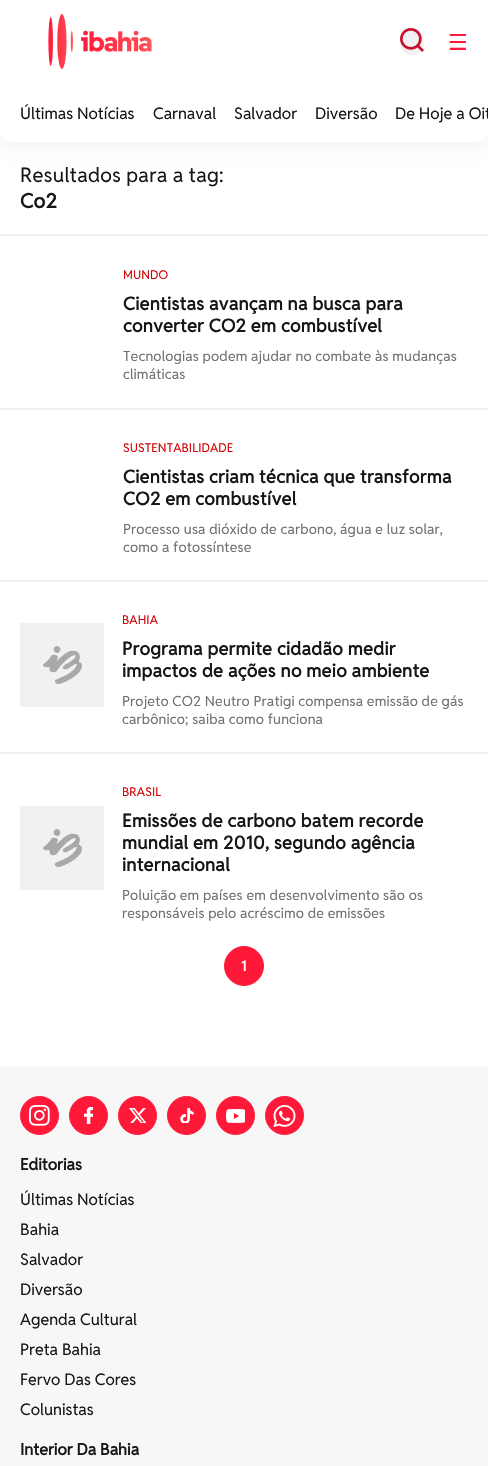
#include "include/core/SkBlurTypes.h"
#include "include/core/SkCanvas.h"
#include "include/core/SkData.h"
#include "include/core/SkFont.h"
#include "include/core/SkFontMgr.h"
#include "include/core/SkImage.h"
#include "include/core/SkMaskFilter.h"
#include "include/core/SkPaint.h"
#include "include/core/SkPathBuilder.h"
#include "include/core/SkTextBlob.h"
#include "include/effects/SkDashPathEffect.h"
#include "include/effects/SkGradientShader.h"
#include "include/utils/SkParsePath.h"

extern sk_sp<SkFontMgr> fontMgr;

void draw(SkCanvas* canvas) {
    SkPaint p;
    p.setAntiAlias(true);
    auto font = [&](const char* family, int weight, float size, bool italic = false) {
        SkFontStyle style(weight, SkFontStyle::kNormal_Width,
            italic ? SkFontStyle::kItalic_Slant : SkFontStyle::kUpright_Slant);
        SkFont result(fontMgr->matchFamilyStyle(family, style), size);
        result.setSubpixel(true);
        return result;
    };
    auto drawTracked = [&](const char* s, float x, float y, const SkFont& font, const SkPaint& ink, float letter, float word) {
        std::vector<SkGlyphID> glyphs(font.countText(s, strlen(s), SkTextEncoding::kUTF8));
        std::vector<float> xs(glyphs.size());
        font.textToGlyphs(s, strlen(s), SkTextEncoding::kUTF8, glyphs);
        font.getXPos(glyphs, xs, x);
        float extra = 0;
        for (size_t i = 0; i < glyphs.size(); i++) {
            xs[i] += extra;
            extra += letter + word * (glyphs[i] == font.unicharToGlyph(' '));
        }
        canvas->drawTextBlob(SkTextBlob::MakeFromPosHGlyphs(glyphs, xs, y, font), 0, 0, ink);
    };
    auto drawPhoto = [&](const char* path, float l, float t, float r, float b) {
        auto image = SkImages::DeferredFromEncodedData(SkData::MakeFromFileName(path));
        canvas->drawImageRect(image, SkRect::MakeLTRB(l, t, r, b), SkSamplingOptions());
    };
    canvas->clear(0xFFFFFFFF);
    p.setColor(0x0D000000);
    p.setMaskFilter(SkMaskFilter::MakeBlur(kNormal_SkBlurStyle, 7.5f));
    canvas->drawRoundRect(SkRect::MakeLTRB(0, 5, 488, 147), 12, 12, p);
    p.setMaskFilter(nullptr);
    p.setColor(0xFFFFFFFF);
    canvas->drawPath(SkPathBuilder().moveTo(0, 0).lineTo(488, 0).lineTo(488, 130).cubicTo(488, 136.5f, 482.5f, 142, 476, 142).lineTo(12, 142).cubicTo(5.5f, 142, 0, 136.5f, 0, 130).close().detach(), p);
    drawPhoto("media/1.png", 48, 14, 152, 69);
    p.setColor(0xFFF1F1F1);
    canvas->drawRoundRect(SkRect::MakeLTRB(400, 28, 424, 55), 12, 12, p);
    drawPhoto("media/2.png", 400, 28, 424, 52);
    auto font1 = font("DejaVu Sans", 400, 22);
    p.setColor(0xFFFF1938);
    canvas->drawString("☰", 448, 50, font1, p);
    auto font2 = font("Reddit Sans", 400, 16);
    p.setColor(0xFF161616);
    {
        const struct { const char* s; float x, y; } items[] = {
            {"Últimas Notícias", 20, 119},
            {"Carnaval", 153, 119},
            {"Salvador", 234, 119},
            {"Diversão", 315, 119},
            {"De Hoje a Oit", 395, 119},
        };
        for (auto [s, x, y] : items) {
            canvas->drawString(s, x, y, font2, p);
        }
    }
    auto font3 = font("Reddit Sans", 400, 20);
    drawTracked("Resultados para a tag:", 20, 182, font3, p, 0.25f, 0);
    auto font4 = font("Reddit Sans", 700, 20);
    drawTracked("Co2", 20, 208, font4, p, 0.25f, 0);
    p.setColor(0xFFF1F1F1);
    canvas->drawRect(SkRect::MakeLTRB(0, 234, 488, 236), p);
    auto font5 = font("Reddit Sans", 400, 12);
    p.setColor(0xFFD20404);
    drawTracked("MUNDO", 123, 279, font5, p, 0.1f, 0);
    auto font6 = font("Reddit Sans", 700, 18);
    p.setColor(0xFF161616);
    drawTracked("Cientistas avançam na busca para", 123, 310, font6, p, 0.3f, 0);
    drawTracked("converter CO2 em combustível", 123, 332, font6, p, 0.3f, 0);
    auto font7 = font("Reddit Sans", 400, 14);
    p.setColor(0xFF727070);
    drawTracked("Tecnologias podem ajudar no combate às mudanças", 123, 361, font7, p, 0.15f, 0);
    drawTracked("climáticas", 123, 379, font7, p, 0.15f, 0);
    p.setColor(0xFFF1F1F1);
    canvas->drawRect(SkRect::MakeLTRB(0, 408, 488, 410), p);
    p.setColor(0xFFD20404);
    drawTracked("SUSTENTABILIDADE", 123, 452, font5, p, 0.1f, 0);
    p.setColor(0xFF161616);
    drawTracked("Cientistas criam técnica que transforma", 123, 483, font6, p, 0.3f, 0);
    drawTracked("CO2 em combustível", 123, 505, font6, p, 0.3f, 0);
    p.setColor(0xFF727070);
    drawTracked("Processo usa dióxido de carbono, água e luz solar,", 123, 534, font7, p, 0.15f, 0);
    drawTracked("como a fotossíntese", 123, 552, font7, p, 0.15f, 0);
    p.setColor(0xFFF1F1F1);
    canvas->drawRect(SkRect::MakeLTRB(0, 580, 488, 582), p);
    drawPhoto("media/3.png", 20, 623, 104, 707);
    p.setColor(0xFFD20404);
    drawTracked("BAHIA", 122, 624, font5, p, 0.1f, 0);
    p.setColor(0xFF161616);
    drawTracked("Programa permite cidadão medir", 122, 655, font6, p, 0.3f, 0);
    drawTracked("impactos de ações no meio ambiente", 122, 677, font6, p, 0.3f, 0);
    p.setColor(0xFF727070);
    drawTracked("Projeto CO2 Neutro Pratigi compensa emissão de gás", 122, 706, font7, p, 0.15f, 0);
    drawTracked("carbônico; saiba como funciona", 122, 724, font7, p, 0.15f, 0);
    p.setColor(0xFFF1F1F1);
    canvas->drawRect(SkRect::MakeLTRB(0, 752, 488, 754), p);
    drawPhoto("media/3.png", 20, 806, 104, 890);
    p.setColor(0xFFD20404);
    drawTracked("BRASIL", 122, 796, font5, p, 0.1f, 0);
    p.setColor(0xFF161616);
    {
        const struct { const char* s; float x, y; } items[] = {
            {"Emissões de carbono batem recorde", 122, 827},
            {"mundial em 2010, segundo agência", 122, 849},
            {"internacional", 122, 871},
        };
        for (auto [s, x, y] : items) {
            drawTracked(s, x, y, font6, p, 0.3f, 0);
        }
    }
    p.setColor(0xFF727070);
    drawTracked("Poluição em países em desenvolvimento são os", 122, 900, font7, p, 0.15f, 0);
    drawTracked("responsáveis pelo acréscimo de emissões", 122, 918, font7, p, 0.15f, 0);
    p.setColor(0xFFFF1938);
    canvas->drawCircle(244, 966, 19.5f, p);
    p.setStyle(SkPaint::kStroke_Style);
    p.setStrokeWidth(1);
    canvas->drawCircle(244, 966, 19.5f, p);
    auto font8 = font("Reddit Sans", 700, 14);
    p.setStyle(SkPaint::kFill_Style);
    p.setColor(0xFFFFFFFF);
    canvas->drawString("1", 241, 971, font8, p);
    p.setColor(0xFFF7F7F7);
    canvas->drawRect(SkRect::MakeLTRB(0, 1066, 488, 1466), p);
    p.setColor(0xFFFF1938);
    canvas->drawCircle(39.5f, 1115.5f, 19, p);
    p.setStyle(SkPaint::kStroke_Style);
    canvas->drawCircle(39.5f, 1115.5f, 19, p);
    drawPhoto("media/4.png", 29, 1105, 50, 1126);
    p.setStyle(SkPaint::kFill_Style);
    canvas->drawCircle(88.5f, 1115.5f, 19, p);
    p.setStyle(SkPaint::kStroke_Style);
    canvas->drawCircle(88.5f, 1115.5f, 19, p);
    drawPhoto("media/5.png", 84, 1107, 93, 1124);
    p.setStyle(SkPaint::kFill_Style);
    canvas->drawCircle(137.5f, 1115.5f, 19, p);
    p.setStyle(SkPaint::kStroke_Style);
    canvas->drawCircle(137.5f, 1115.5f, 19, p);
    drawPhoto("media/6.png", 129, 1108, 147, 1123);
    p.setStyle(SkPaint::kFill_Style);
    canvas->drawCircle(186.5f, 1115.5f, 19, p);
    p.setStyle(SkPaint::kStroke_Style);
    canvas->drawCircle(186.5f, 1115.5f, 19, p);
    drawPhoto("media/7.png", 180, 1108, 194, 1123);
    p.setStyle(SkPaint::kFill_Style);
    canvas->drawCircle(235.5f, 1115.5f, 19, p);
    p.setStyle(SkPaint::kStroke_Style);
    canvas->drawCircle(235.5f, 1115.5f, 19, p);
    drawPhoto("media/8.png", 226, 1108, 245, 1123);
    p.setStyle(SkPaint::kFill_Style);
    canvas->drawCircle(284.5f, 1115.5f, 19, p);
    p.setStyle(SkPaint::kStroke_Style);
    canvas->drawCircle(284.5f, 1115.5f, 19, p);
    drawPhoto("media/9.png", 273, 1105, 296, 1127);
    auto font9 = font("Reddit Sans", 700, 16);
    p.setStyle(SkPaint::kFill_Style);
    p.setColor(0xFF161616);
    canvas->drawString("Editorias", 20, 1170, font9, p);
    {
        const struct { const char* s; float x, y; } items[] = {
            {"Últimas Notícias", 20, 1205},
            {"Bahia", 20, 1235},
            {"Salvador", 20, 1265},
            {"Diversão", 20, 1295},
            {"Agenda Cultural", 20, 1325},
            {"Preta Bahia", 20, 1355},
            {"Fervo Das Cores", 20, 1385},
            {"Colunistas", 20, 1415},
        };
        for (auto [s, x, y] : items) {
            canvas->drawString(s, x, y, font2, p);
        }
    }
    canvas->drawString("Interior Da Bahia", 20, 1455, font9, p);
}
